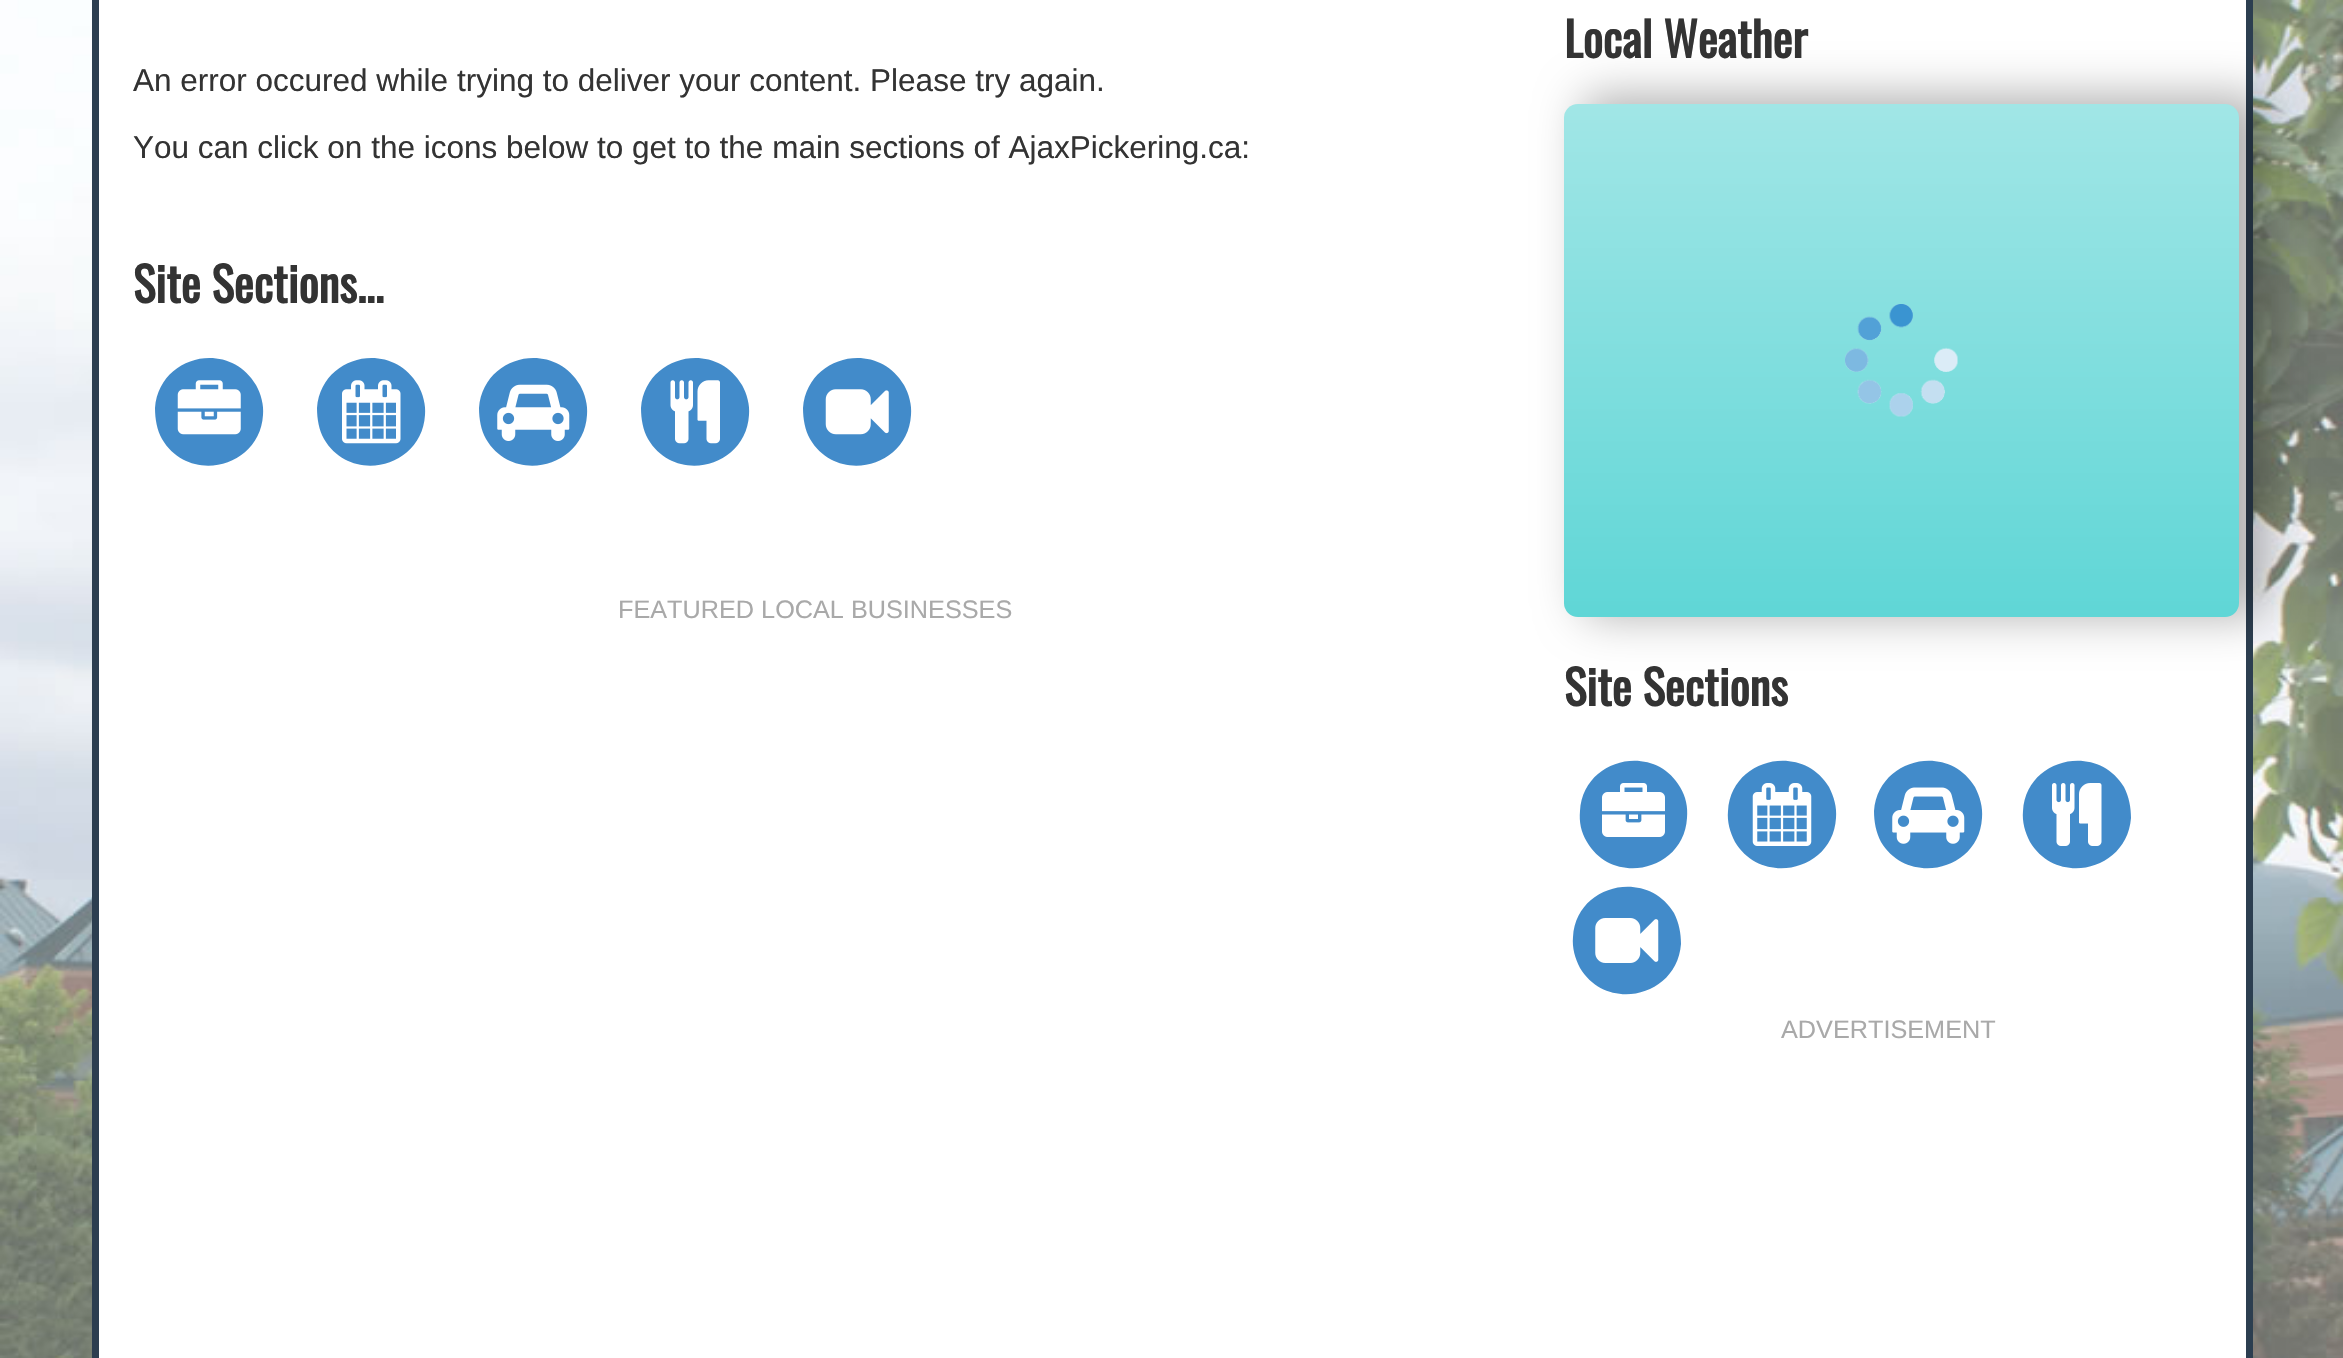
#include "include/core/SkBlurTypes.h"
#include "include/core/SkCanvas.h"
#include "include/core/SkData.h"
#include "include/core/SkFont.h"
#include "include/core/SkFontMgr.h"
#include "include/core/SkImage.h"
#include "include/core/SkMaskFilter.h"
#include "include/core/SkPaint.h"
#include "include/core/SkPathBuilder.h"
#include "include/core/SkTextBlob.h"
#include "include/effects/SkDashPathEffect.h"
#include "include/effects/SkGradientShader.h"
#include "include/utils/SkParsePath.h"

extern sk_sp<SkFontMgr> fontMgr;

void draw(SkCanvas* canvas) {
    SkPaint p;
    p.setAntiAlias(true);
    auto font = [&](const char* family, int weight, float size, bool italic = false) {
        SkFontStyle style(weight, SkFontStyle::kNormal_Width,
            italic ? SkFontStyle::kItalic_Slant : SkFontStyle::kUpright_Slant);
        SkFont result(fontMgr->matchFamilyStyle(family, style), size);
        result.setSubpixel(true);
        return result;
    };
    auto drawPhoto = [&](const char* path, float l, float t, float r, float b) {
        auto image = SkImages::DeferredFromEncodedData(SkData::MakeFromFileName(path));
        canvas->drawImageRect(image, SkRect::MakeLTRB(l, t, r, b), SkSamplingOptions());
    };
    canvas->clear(0xFFFFFFFF);
    drawPhoto("media/1.png", 0, 0, 2343, 1358);
    {
        const struct { float l, t, r, b; SkColor color; } items[] = {
            {99, 0, 2246, 1358, 0xFFFFFFFF},
            {2246, 0, 2253, 1358, 0xFF2C3E50},
            {92, 0, 99, 1358, 0xFF2C3E50},
        };
        for (auto [l, t, r, b, color] : items) {
            p.setColor(color);
            canvas->drawRect(SkRect::MakeLTRB(l, t, r, b), p);
        }
    }
    auto font1 = font("Liberation Sans", 400, 31.5f);
    p.setColor(0xFF333333);
    canvas->drawString("An error occured while trying to deliver your content. Please try again.", 133, 91, font1, p);
    canvas->drawString("You can click on the icons below to get to the main sections of AjaxPickering.ca:", 133, 158, font1, p);
    auto font2 = font("Oswald", 700, 47.25f);
    canvas->drawString("Site Sections...", 133, 303, font2, p);
    p.setColor(0xFF428BCA);
    canvas->drawPath(SkPathBuilder().moveTo(256, 385).cubicTo(261, 394, 264, 405, 263, 415).cubicTo(260, 468, 189, 485, 162, 439).cubicTo(157, 430, 155, 419, 155, 408).cubicTo(159, 355, 229, 339, 256, 385).close().detach(), p);
    drawPhoto("media/2.png", 177, 380, 241, 435);
    canvas->drawPath(SkPathBuilder().moveTo(418, 385).cubicTo(423, 394, 426, 405, 425, 415).cubicTo(422, 468, 351, 485, 324, 439).cubicTo(319, 430, 317, 419, 317, 408).cubicTo(321, 355, 391, 339, 418, 385).close().detach(), p);
    drawPhoto("media/3.png", 342, 380, 401, 444);
    canvas->drawPath(SkPathBuilder().moveTo(580, 385).cubicTo(585, 394, 588, 405, 587, 415).cubicTo(584, 468, 513, 485, 486, 439).cubicTo(481, 430, 479, 419, 479, 408).cubicTo(483, 355, 553, 339, 580, 385).close().detach(), p);
    drawPhoto("media/4.png", 497, 384, 570, 441);
    canvas->drawPath(SkPathBuilder().moveTo(742, 385).cubicTo(747, 394, 750, 405, 749, 415).cubicTo(746, 468, 675, 485, 648, 439).cubicTo(643, 430, 641, 419, 641, 408).cubicTo(645, 355, 715, 339, 742, 385).close().detach(), p);
    drawPhoto("media/5.png", 670, 380, 720, 444);
    canvas->drawPath(SkPathBuilder().moveTo(904, 385).cubicTo(909, 394, 912, 405, 911, 415).cubicTo(908, 468, 837, 485, 810, 439).cubicTo(805, 430, 803, 419, 803, 408).cubicTo(807, 355, 877, 339, 904, 385).close().detach(), p);
    drawPhoto("media/6.png", 825, 389, 889, 435);
    auto font3 = font("Liberation Sans", 400, 25.25f);
    p.setColor(0xFFA9A9A9);
    canvas->drawString("FEATURED LOCAL BUSINESSES", 618, 618, font3, p);
    p.setColor(0xFF333333);
    canvas->drawString("Local Weather", 1564, 58, font2, p);
    p.setColor(0x4D000000);
    p.setMaskFilter(SkMaskFilter::MakeBlur(kNormal_SkBlurStyle, 22.5f));
    canvas->drawRoundRect(SkRect::MakeLTRB(1582, 95, 2266, 617), 18, 18, p);
    p.setMaskFilter(nullptr);
    {
        const SkColor colors[] = {0xFF5FD6D6, 0xFFA1E6E6};
        const float stops[] = {0, 1};
        const SkPoint ends[] = {{1901, 617}, {1901, 104}};
        p.setShader(SkGradientShader::MakeLinear(ends, colors, stops, 2, SkTileMode::kClamp));
        p.setAlpha(255);
    }
    canvas->drawRoundRect(SkRect::MakeLTRB(1564, 104, 2239, 617), 14, 14, p);
    drawPhoto("media/7.png", 1845, 304, 1958, 417);
    p.setShader(nullptr);
    p.setColor(0xFF333333);
    canvas->drawString("Site Sections", 1564, 706, font2, p);
    p.setColor(0xFF428BCA);
    canvas->drawPath(SkPathBuilder().moveTo(1680, 787).cubicTo(1686, 797, 1688, 807, 1687, 818).cubicTo(1684, 871, 1613, 887, 1587, 842).cubicTo(1581, 832, 1579, 822, 1580, 811).cubicTo(1583, 758, 1654, 742, 1680, 787).close().detach(), p);
    drawPhoto("media/8.png", 1602, 783, 1665, 837);
    canvas->drawPath(SkPathBuilder().moveTo(1829, 787).cubicTo(1834, 797, 1837, 807, 1836, 818).cubicTo(1833, 871, 1762, 887, 1735, 842).cubicTo(1730, 832, 1727, 822, 1728, 811).cubicTo(1731, 758, 1802, 742, 1829, 787).close().detach(), p);
    drawPhoto("media/9.png", 1752, 783, 1812, 846);
    canvas->drawPath(SkPathBuilder().moveTo(1975, 787).cubicTo(1980, 797, 1983, 807, 1982, 818).cubicTo(1979, 871, 1908, 887, 1881, 842).cubicTo(1876, 832, 1874, 822, 1874, 811).cubicTo(1878, 758, 1948, 742, 1975, 787).close().detach(), p);
    drawPhoto("media/10.png", 1892, 787, 1965, 844);
    canvas->drawPath(SkPathBuilder().moveTo(2124, 787).cubicTo(2129, 797, 2131, 807, 2131, 818).cubicTo(2127, 871, 2057, 887, 2030, 842).cubicTo(2025, 832, 2022, 822, 2023, 811).cubicTo(2026, 758, 2097, 742, 2124, 787).close().detach(), p);
    drawPhoto("media/11.png", 2052, 783, 2102, 846);
    canvas->drawPath(SkPathBuilder().moveTo(1674, 913).cubicTo(1679, 923, 1681, 933, 1681, 944).cubicTo(1677, 997, 1607, 1013, 1580, 968).cubicTo(1575, 958, 1572, 948, 1573, 937).cubicTo(1576, 884, 1647, 868, 1674, 913).close().detach(), p);
    drawPhoto("media/12.png", 1595, 918, 1659, 963);
    p.setColor(0xFFA9A9A9);
    canvas->drawString("ADVERTISEMENT", 1781, 1038, font3, p);
}
